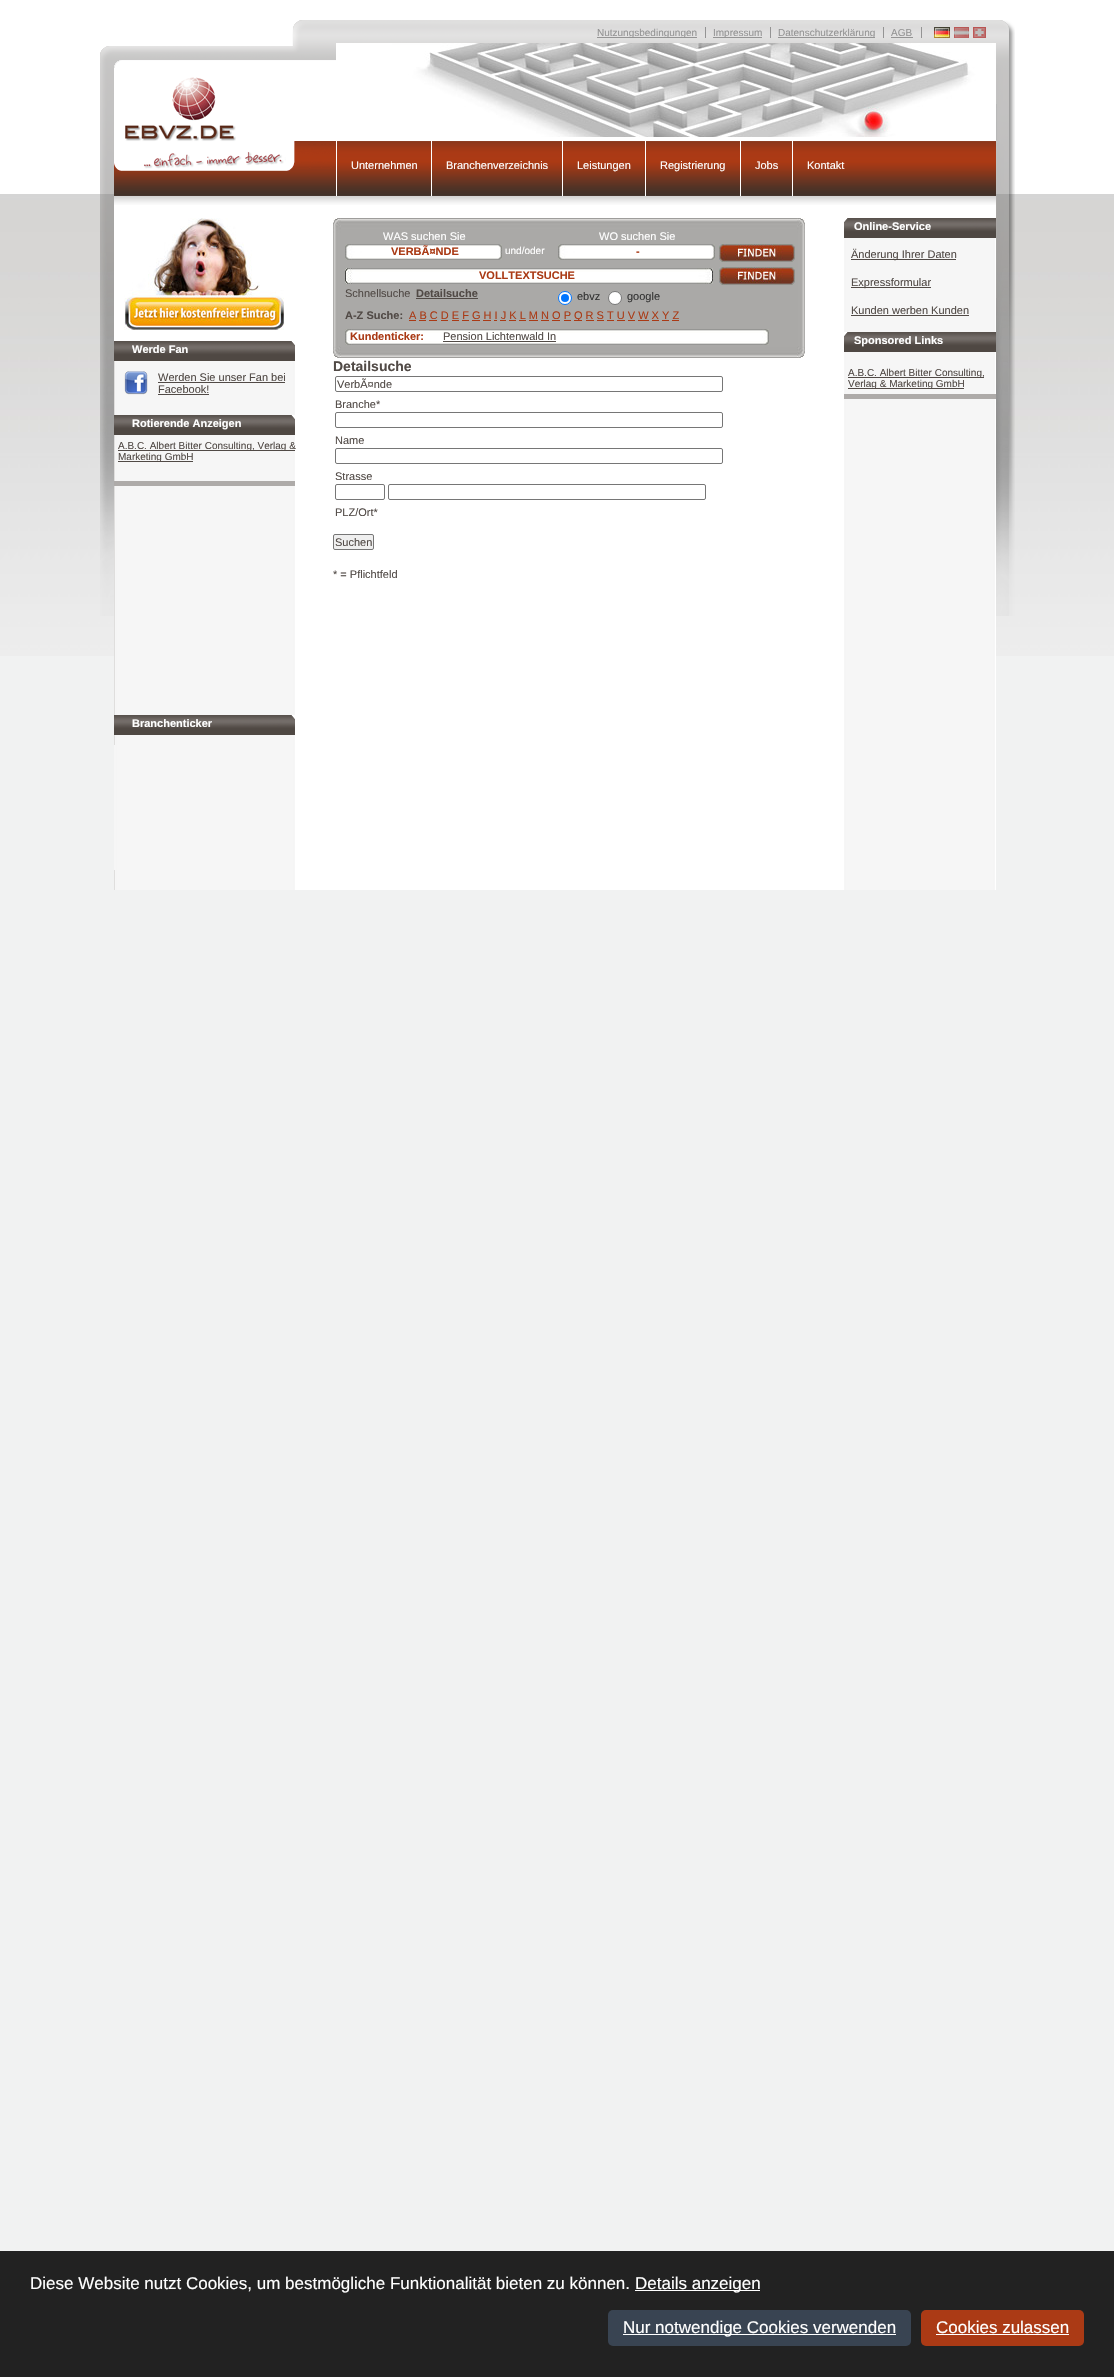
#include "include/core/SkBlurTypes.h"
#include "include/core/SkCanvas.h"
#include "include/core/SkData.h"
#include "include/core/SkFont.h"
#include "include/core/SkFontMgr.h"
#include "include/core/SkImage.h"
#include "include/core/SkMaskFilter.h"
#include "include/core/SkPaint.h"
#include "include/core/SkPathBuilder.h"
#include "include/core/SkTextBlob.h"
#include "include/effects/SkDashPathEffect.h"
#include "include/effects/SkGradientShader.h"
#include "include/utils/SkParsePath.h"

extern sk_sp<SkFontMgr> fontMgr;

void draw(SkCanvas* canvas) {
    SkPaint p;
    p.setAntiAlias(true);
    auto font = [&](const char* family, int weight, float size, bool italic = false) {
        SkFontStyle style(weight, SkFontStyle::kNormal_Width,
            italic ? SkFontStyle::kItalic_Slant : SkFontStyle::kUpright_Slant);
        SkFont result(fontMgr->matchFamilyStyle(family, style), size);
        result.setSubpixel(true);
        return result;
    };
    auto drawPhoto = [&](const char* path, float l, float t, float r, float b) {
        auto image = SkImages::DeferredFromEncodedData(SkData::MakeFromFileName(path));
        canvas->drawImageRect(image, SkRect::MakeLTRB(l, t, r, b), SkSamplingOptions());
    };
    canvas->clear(0xFFF1F2F2);
    drawPhoto("media/1.png", 0, 0, 1114, 656);
    drawPhoto("media/2.png", 100, 20, 1015, 616);
    drawPhoto("media/3.png", 114, 60, 336, 68);
    p.setColor(0xFF949494);
    canvas->drawRect(SkRect::MakeLTRB(705, 27, 706, 38), p);
    canvas->drawRect(SkRect::MakeLTRB(597, 37, 697, 38), p);
    auto font1 = font("Liberation Sans", 400, 10);
    canvas->drawString("Nutzungsbedingungen", 597, 36, font1, p);
    canvas->drawRect(SkRect::MakeLTRB(770, 27, 771, 38), p);
    canvas->drawRect(SkRect::MakeLTRB(713, 37, 762, 38), p);
    canvas->drawString("Impressum", 713, 36, font1, p);
    canvas->drawRect(SkRect::MakeLTRB(883, 27, 884, 38), p);
    canvas->drawRect(SkRect::MakeLTRB(778, 37, 875, 38), p);
    canvas->drawString("Datenschutzerklärung", 778, 36, font1, p);
    canvas->drawRect(SkRect::MakeLTRB(921, 27, 922, 38), p);
    canvas->drawString("AGB", 891, 36, font1, p);
    canvas->drawRect(SkRect::MakeLTRB(891, 37, 913, 38), p);
    drawPhoto("media/4.png", 934, 27, 950, 38);
    drawPhoto("media/5.png", 954, 27, 969, 38);
    drawPhoto("media/6.png", 973, 27, 986, 38);
    p.setColor(0xFFFFFFFF);
    canvas->drawRect(SkRect::MakeLTRB(114, 68, 996, 890), p);
    drawPhoto("media/7.png", 336, 43, 996, 137);
    drawPhoto("media/8.png", 114, 141, 996, 196);
    drawPhoto("media/9.png", 114, 77, 336, 171);
    canvas->drawRect(SkRect::MakeLTRB(336, 141, 337, 196), p);
    auto font2 = font("Liberation Sans", 400, 11);
    canvas->drawString("Unternehmen", 351, 169, font2, p);
    canvas->drawRect(SkRect::MakeLTRB(431, 141, 432, 196), p);
    canvas->drawString("Branchenverzeichnis", 446, 169, font2, p);
    canvas->drawRect(SkRect::MakeLTRB(562, 141, 563, 196), p);
    canvas->drawString("Leistungen", 577, 169, font2, p);
    canvas->drawRect(SkRect::MakeLTRB(645, 141, 646, 196), p);
    canvas->drawString("Registrierung", 660, 169, font2, p);
    canvas->drawRect(SkRect::MakeLTRB(740, 141, 741, 196), p);
    canvas->drawString("Jobs", 755, 169, font2, p);
    canvas->drawRect(SkRect::MakeLTRB(792, 141, 793, 196), p);
    canvas->drawString("Kontakt", 807, 169, font2, p);
    drawPhoto("media/10.png", 114, 196, 996, 205);
    drawPhoto("media/11.png", 114, 218, 995, 890);
    canvas->drawRect(SkRect::MakeLTRB(114, 218, 295, 341), p);
    drawPhoto("media/12.png", 124, 218, 284, 330);
    drawPhoto("media/13.png", 114, 341, 295, 361);
    auto font3 = font("Liberation Sans", 700, 11);
    canvas->drawString("Werde Fan", 132, 353, font3, p);
    drawPhoto("media/14.png", 124, 371, 148, 395);
    p.setColor(0xFF514A46);
    canvas->drawString("Werden Sie unser Fan bei", 158, 381, font2, p);
    canvas->drawRect(SkRect::MakeLTRB(158, 382, 285, 383), p);
    canvas->drawString("Facebook!", 158, 393, font2, p);
    canvas->drawRect(SkRect::MakeLTRB(158, 394, 209, 395), p);
    drawPhoto("media/13.png", 114, 415, 295, 435);
    p.setColor(0xFFFFFFFF);
    canvas->drawString("Rotierende Anzeigen", 132, 427, font3, p);
    p.setColor(0xFFAEABA9);
    canvas->drawRect(SkRect::MakeLTRB(114, 481, 295, 486), p);
    p.setColor(0xFF514A46);
    canvas->drawRect(SkRect::MakeLTRB(118, 450, 295, 451), p);
    canvas->drawString("A.B.C. Albert Bitter Consulting, Verlag &", 118, 449, font1, p);
    canvas->drawRect(SkRect::MakeLTRB(118, 461, 193, 462), p);
    canvas->drawString("Marketing GmbH", 118, 460, font1, p);
    drawPhoto("media/13.png", 114, 715, 295, 735);
    p.setColor(0xFFFFFFFF);
    canvas->drawString("Branchenticker", 132, 727, font3, p);
    p.setColor(0xFFF6F6F6);
    canvas->drawRect(SkRect::MakeLTRB(114, 745, 115, 870), p);
    drawPhoto("media/15.png", 333, 218, 805, 358);
    p.setColor(0xFFFFFFFF);
    canvas->drawString("WAS suchen Sie", 383, 240, font2, p);
    drawPhoto("media/16.png", 345, 244, 502, 260);
    p.setColor(0xFFAA3A15);
    canvas->drawString("VERBÃ¤NDE", 391, 255, font3, p);
    p.setColor(0xFF514A46);
    canvas->drawString("Schnellsuche", 345, 297, font2, p);
    canvas->drawString("Detailsuche", 416, 297, font3, p);
    canvas->drawRect(SkRect::MakeLTRB(416, 298, 478, 299), p);
    p.setColor(0xFFFFFFFF);
    canvas->drawString("und/oder", 505, 254, font1, p);
    canvas->drawString("WO suchen Sie", 599, 240, font2, p);
    drawPhoto("media/16.png", 558, 244, 715, 260);
    p.setColor(0xFFAA3A15);
    canvas->drawString("-", 636, 255, font3, p);
    p.setColor(0xFFFFFFFF);
    canvas->drawCircle(565, 298, 6.5f, p);
    p.setStyle(SkPaint::kStroke_Style);
    p.setStrokeWidth(1);
    p.setColor(0xFF0075FF);
    canvas->drawCircle(565, 298, 6.5f, p);
    p.setStyle(SkPaint::kFill_Style);
    canvas->drawCircle(565, 298, 4, p);
    p.setColor(0xFF333333);
    canvas->drawString("ebvz", 577, 300, font2, p);
    p.setColor(0xFFFFFFFF);
    canvas->drawCircle(615, 298, 6.5f, p);
    p.setStyle(SkPaint::kStroke_Style);
    p.setColor(0xFF767676);
    canvas->drawCircle(615, 298, 6.5f, p);
    p.setStyle(SkPaint::kFill_Style);
    p.setColor(0xFF333333);
    canvas->drawString("google", 627, 300, font2, p);
    drawPhoto("media/17.png", 719, 244, 795, 262);
    p.setColor(0xFF514A46);
    canvas->drawString("A-Z Suche:", 345, 319, font3, p);
    p.setColor(0xFFAA3A15);
    canvas->drawString("A B C D E F G H I J K L M N O P", 409, 319, font2, p);
    canvas->drawRect(SkRect::MakeLTRB(409, 320, 416, 321), p);
    canvas->drawRect(SkRect::MakeLTRB(574, 320, 582, 321), p);
    canvas->drawString("Q R S T U V W X Y Z", 574, 319, font2, p);
    {
        const struct { float l, t, r, b; SkColor color; } items[] = {
            {419, 320, 426, 321, 0xFFAA3A15},
            {429, 320, 437, 321, 0xFFAA3A15},
            {441, 320, 448, 321, 0xFFAA3A15},
            {452, 320, 459, 321, 0xFFAA3A15},
            {462, 320, 469, 321, 0xFFAA3A15},
            {472, 320, 480, 321, 0xFFAA3A15},
            {483, 320, 491, 321, 0xFFAA3A15},
            {494, 320, 497, 321, 0xFFAA3A15},
            {500, 320, 506, 321, 0xFFAA3A15},
            {509, 320, 516, 321, 0xFFAA3A15},
            {519, 320, 526, 321, 0xFFAA3A15},
            {529, 320, 538, 321, 0xFFAA3A15},
            {541, 320, 549, 321, 0xFFAA3A15},
            {552, 320, 560, 321, 0xFFAA3A15},
            {564, 320, 571, 321, 0xFFAA3A15},
            {586, 320, 594, 321, 0xFFAA3A15},
            {597, 320, 604, 321, 0xFFAA3A15},
            {607, 320, 614, 321, 0xFFAA3A15},
            {617, 320, 625, 321, 0xFFAA3A15},
            {628, 320, 635, 321, 0xFFAA3A15},
            {638, 320, 649, 321, 0xFFAA3A15},
            {652, 320, 659, 321, 0xFFAA3A15},
            {662, 320, 669, 321, 0xFFAA3A15},
            {672, 320, 679, 321, 0xFFAA3A15},
        };
        for (auto [l, t, r, b, color] : items) {
            p.setColor(color);
            canvas->drawRect(SkRect::MakeLTRB(l, t, r, b), p);
        }
    }
    drawPhoto("media/18.png", 345, 329, 769, 345);
    canvas->drawString("Kundenticker:", 350, 340, font3, p);
    p.setColor(0xFF514A46);
    canvas->drawString("Pension Lichtenwald In", 443, 340, font2, p);
    canvas->drawRect(SkRect::MakeLTRB(443, 341, 556, 342), p);
    drawPhoto("media/19.png", 345, 268, 713, 284);
    p.setColor(0xFFAA3A15);
    canvas->drawString("VOLLTEXTSUCHE", 479, 279, font3, p);
    drawPhoto("media/17.png", 719, 267, 795, 285);
    auto font4 = font("Liberation Sans", 700, 14);
    p.setColor(0xFF514A46);
    canvas->drawString("Detailsuche", 333, 371, font4, p);
    p.setStyle(SkPaint::kStroke_Style);
    p.setColor(0xFF767676);
    canvas->drawRoundRect(SkRect::MakeLTRB(335.5f, 376.5f, 722.5f, 391.5f), 1.5f, 1.5f, p);
    p.setStyle(SkPaint::kFill_Style);
    p.setColor(0xFF514A46);
    canvas->drawString("VerbÃ¤nde", 337, 388, font2, p);
    canvas->drawString("Branche*", 335, 408, font2, p);
    p.setStyle(SkPaint::kStroke_Style);
    p.setColor(0xFF767676);
    canvas->drawRoundRect(SkRect::MakeLTRB(335.5f, 412.5f, 722.5f, 427.5f), 1.5f, 1.5f, p);
    p.setStyle(SkPaint::kFill_Style);
    p.setColor(0xFF514A46);
    canvas->drawString("Name", 335, 444, font2, p);
    p.setStyle(SkPaint::kStroke_Style);
    p.setColor(0xFF767676);
    canvas->drawRoundRect(SkRect::MakeLTRB(335.5f, 448.5f, 722.5f, 463.5f), 1.5f, 1.5f, p);
    p.setStyle(SkPaint::kFill_Style);
    p.setColor(0xFF514A46);
    canvas->drawString("Strasse", 335, 480, font2, p);
    p.setStyle(SkPaint::kStroke_Style);
    p.setColor(0xFF767676);
    canvas->drawRoundRect(SkRect::MakeLTRB(335.5f, 484.5f, 384.5f, 499.5f), 1.5f, 1.5f, p);
    canvas->drawRoundRect(SkRect::MakeLTRB(388.5f, 484.5f, 705.5f, 499.5f), 1.5f, 1.5f, p);
    p.setStyle(SkPaint::kFill_Style);
    p.setColor(0xFF514A46);
    canvas->drawString("PLZ/Ort*", 335, 516, font2, p);
    p.setColor(0xFFEFEFEF);
    canvas->drawRoundRect(SkRect::MakeLTRB(333.5f, 534.5f, 373.5f, 549.5f), 1.5f, 1.5f, p);
    p.setStyle(SkPaint::kStroke_Style);
    p.setColor(0xFF767676);
    canvas->drawRoundRect(SkRect::MakeLTRB(333.5f, 534.5f, 373.5f, 549.5f), 1.5f, 1.5f, p);
    p.setStyle(SkPaint::kFill_Style);
    p.setColor(0xFF514A46);
    canvas->drawString("Suchen", 335, 546, font2, p);
    canvas->drawString("* = Pflichtfeld", 333, 578, font2, p);
    drawPhoto("media/20.png", 844, 218, 996, 238);
    p.setColor(0xFFFFFFFF);
    canvas->drawString("Online-Service", 854, 230, font3, p);
    p.setColor(0xFF514A46);
    canvas->drawRect(SkRect::MakeLTRB(851, 259, 956, 260), p);
    canvas->drawString("Änderung Ihrer Daten", 851, 258, font2, p);
    canvas->drawRect(SkRect::MakeLTRB(851, 287, 931, 288), p);
    canvas->drawString("Expressformular", 851, 286, font2, p);
    canvas->drawString("Kunden werben Kunden", 851, 314, font2, p);
    canvas->drawRect(SkRect::MakeLTRB(851, 315, 969, 316), p);
    drawPhoto("media/20.png", 844, 332, 996, 352);
    p.setColor(0xFFFFFFFF);
    canvas->drawString("Sponsored Links", 854, 344, font3, p);
    p.setColor(0xFFAEABA9);
    canvas->drawRect(SkRect::MakeLTRB(844, 394, 996, 399), p);
    p.setColor(0xFF514A46);
    canvas->drawRect(SkRect::MakeLTRB(848, 377, 984, 378), p);
    canvas->drawString("A.B.C. Albert Bitter Consulting,", 848, 376, font1, p);
    canvas->drawRect(SkRect::MakeLTRB(848, 388, 964, 389), p);
    canvas->drawString("Verlag & Marketing GmbH", 848, 387, font1, p);
    p.setColor(0xFF222222);
    canvas->drawRect(SkRect::MakeLTRB(0, 2251, 1114, 2377), p);
    auto font5 = font("Liberation Sans", 400, 17);
    p.setColor(0xFFFFFFFF);
    canvas->drawString("Diese Website nutzt Cookies, um bestmögliche Funktionalität bieten zu können.", 30, 2289, font5, p);
    canvas->drawRect(SkRect::MakeLTRB(635, 2290, 760, 2291), p);
    canvas->drawString("Details anzeigen", 635, 2289, font5, p);
    p.setColor(0xFF394452);
    canvas->drawRoundRect(SkRect::MakeLTRB(608, 2310, 911, 2346), 5, 5, p);
    p.setColor(0xFFFFFFFF);
    canvas->drawRect(SkRect::MakeLTRB(623, 2334, 896, 2335), p);
    canvas->drawString("Nur notwendige Cookies verwenden", 623, 2333, font5, p);
    p.setColor(0xFFAB3A15);
    canvas->drawRoundRect(SkRect::MakeLTRB(921, 2310, 1084, 2346), 5, 5, p);
    p.setColor(0xFFFFFFFF);
    canvas->drawString("Cookies zulassen", 936, 2333, font5, p);
    canvas->drawRect(SkRect::MakeLTRB(936, 2334, 1069, 2335), p);
}
